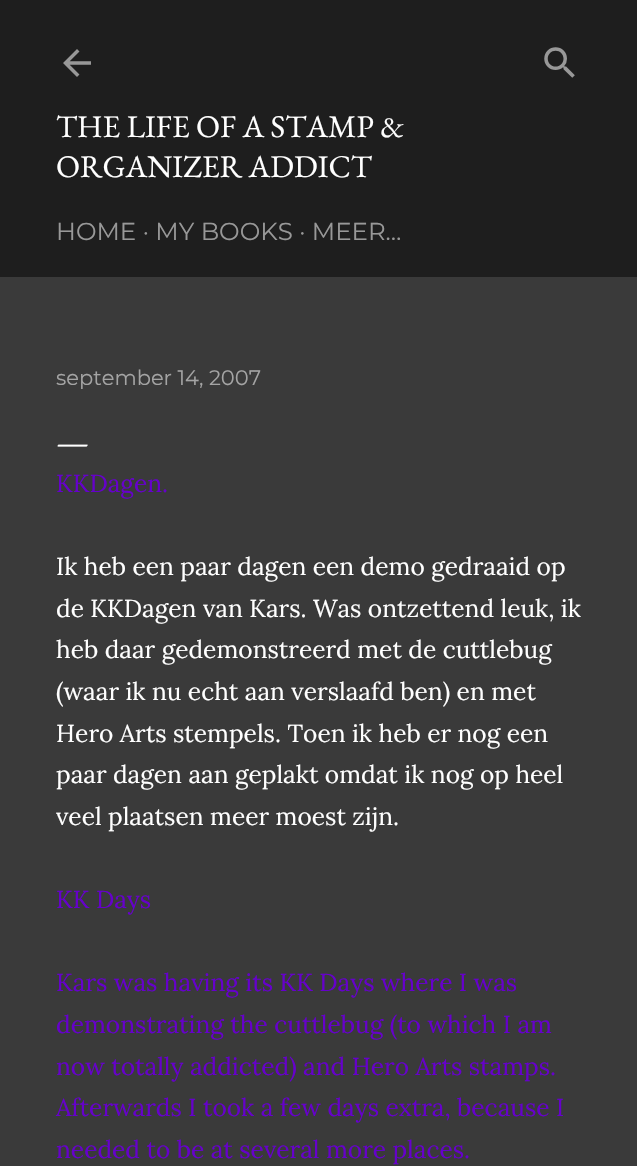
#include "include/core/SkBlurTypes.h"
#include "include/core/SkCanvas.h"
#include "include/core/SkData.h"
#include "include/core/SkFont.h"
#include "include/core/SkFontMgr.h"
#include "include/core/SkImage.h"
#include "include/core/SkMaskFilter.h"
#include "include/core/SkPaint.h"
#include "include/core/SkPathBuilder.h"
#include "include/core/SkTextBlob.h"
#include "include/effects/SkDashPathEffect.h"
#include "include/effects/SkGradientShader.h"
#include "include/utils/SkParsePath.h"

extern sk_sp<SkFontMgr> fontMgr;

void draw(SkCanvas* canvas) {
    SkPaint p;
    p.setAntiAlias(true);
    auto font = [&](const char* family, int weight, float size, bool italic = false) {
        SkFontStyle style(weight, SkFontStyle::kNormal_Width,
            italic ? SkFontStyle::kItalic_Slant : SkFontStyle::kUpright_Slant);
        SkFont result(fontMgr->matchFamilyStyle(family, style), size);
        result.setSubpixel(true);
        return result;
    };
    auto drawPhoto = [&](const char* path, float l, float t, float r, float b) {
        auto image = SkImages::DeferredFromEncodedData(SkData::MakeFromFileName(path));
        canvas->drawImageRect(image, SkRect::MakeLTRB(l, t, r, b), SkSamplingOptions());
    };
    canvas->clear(0xFF3A3A3A);
    p.setColor(0xFF1E1E1E);
    canvas->drawRect(SkRect::MakeLTRB(0, 0, 637, 277), p);
    drawPhoto("media/1.png", 63, 49, 91, 77);
    drawPhoto("media/2.png", 544, 47, 575, 78);
    auto font1 = font("EB Garamond", 400, 31.5f);
    p.setColor(0xFFFFFFFF);
    canvas->drawString("THE LIFE OF A STAMP &", 56, 137, font1, p);
    canvas->drawString("ORGANIZER ADDICT", 56, 177, font1, p);
    auto font2 = font("Montserrat", 400, 24.5f);
    p.setColor(0xFF989898);
    canvas->drawString("HOME · MY BOOKS · MEER…", 56, 240, font2, p);
    auto font3 = font("Montserrat", 400, 21);
    p.setColor(0xFFA4A4A4);
    canvas->drawString("september 14, 2007", 56, 385, font3, p);
    auto font4 = font("EB Garamond", 400, 35);
    p.setColor(0xFFFFFFFF);
    canvas->drawString("—", 56, 453, font4, p);
    auto font5 = font("Lora", 400, 24.5f);
    p.setColor(0xFF6600CC);
    canvas->drawString("KKDagen.", 56, 492, font5, p);
    p.setColor(0xFFFFFFFF);
    {
        const struct { const char* s; float x, y; } items[] = {
            {"Ik heb een paar dagen een demo gedraaid op", 56, 575},
            {"de KKDagen van Kars. Was ontzettend leuk, ik", 56, 617},
            {"heb daar gedemonstreerd met de cuttlebug", 56, 658},
            {"(waar ik nu echt aan verslaafd ben) en met", 56, 700},
            {"Hero Arts stempels. Toen ik heb er nog een", 56, 742},
            {"paar dagen aan geplakt omdat ik nog op heel", 56, 783},
            {"veel plaatsen meer moest zijn.", 56, 825},
        };
        for (auto [s, x, y] : items) {
            canvas->drawString(s, x, y, font5, p);
        }
    }
    p.setColor(0xFF6600CC);
    {
        const struct { const char* s; float x, y; } items[] = {
            {"KK Days", 56, 908},
            {"Kars was having its KK Days where I was", 56, 991},
            {"demonstrating the cuttlebug (to which I am", 56, 1033},
            {"now totally addicted) and Hero Arts stamps.", 56, 1075},
            {"Afterwards I took a few days extra, because I", 56, 1116},
            {"needed to be at several more places.", 56, 1158},
        };
        for (auto [s, x, y] : items) {
            canvas->drawString(s, x, y, font5, p);
        }
    }
}
